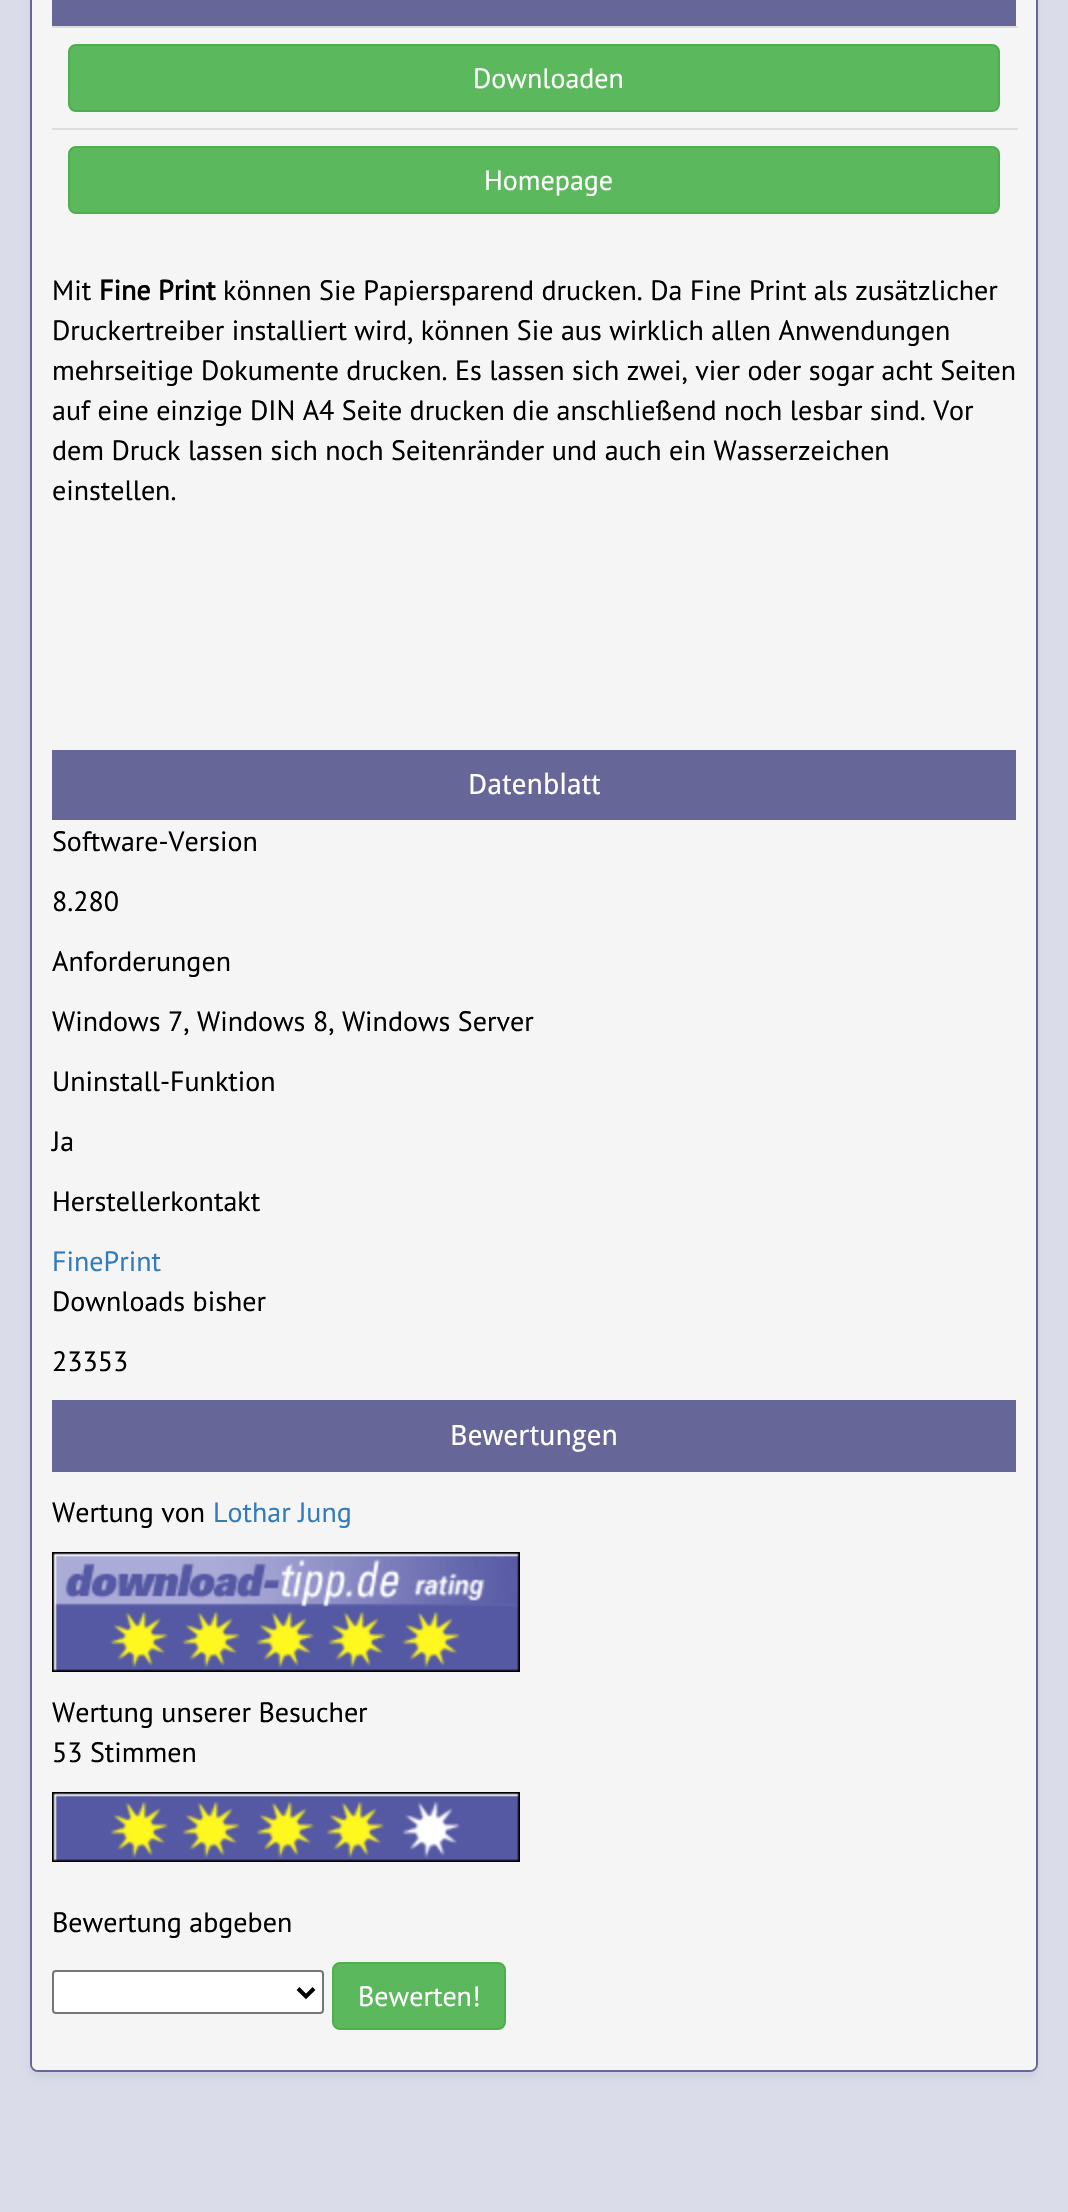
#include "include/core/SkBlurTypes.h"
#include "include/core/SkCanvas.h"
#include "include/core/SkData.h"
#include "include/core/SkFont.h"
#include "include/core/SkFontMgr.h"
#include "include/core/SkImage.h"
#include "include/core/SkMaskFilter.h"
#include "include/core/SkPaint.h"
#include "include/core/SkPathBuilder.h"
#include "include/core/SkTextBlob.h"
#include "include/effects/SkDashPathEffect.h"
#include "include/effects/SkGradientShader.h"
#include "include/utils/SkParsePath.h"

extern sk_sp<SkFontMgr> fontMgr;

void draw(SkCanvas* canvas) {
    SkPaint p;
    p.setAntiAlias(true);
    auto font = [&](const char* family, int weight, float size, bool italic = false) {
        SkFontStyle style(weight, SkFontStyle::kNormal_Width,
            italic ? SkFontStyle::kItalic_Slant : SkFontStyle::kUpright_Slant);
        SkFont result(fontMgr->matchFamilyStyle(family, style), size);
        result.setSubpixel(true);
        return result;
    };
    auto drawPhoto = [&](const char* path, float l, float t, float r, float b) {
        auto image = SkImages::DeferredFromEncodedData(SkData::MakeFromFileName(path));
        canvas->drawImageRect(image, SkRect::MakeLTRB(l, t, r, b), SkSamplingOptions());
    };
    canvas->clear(0xFFDBDCEA);
    p.setColor(0x0D000000);
    p.setMaskFilter(SkMaskFilter::MakeBlur(kNormal_SkBlurStyle, 3));
    canvas->drawRoundRect(SkRect::MakeLTRB(30, -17, 1038, 2078), 8, 8, p);
    p.setMaskFilter(nullptr);
    p.setStyle(SkPaint::kStroke_Style);
    p.setStrokeWidth(2);
    p.setColor(0xFF666699);
    canvas->drawRoundRect(SkRect::MakeLTRB(31, -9, 1037, 2071), 7, 7, p);
    p.setStyle(SkPaint::kFill_Style);
    p.setColor(0xFFF5F5F5);
    canvas->drawPath(SkPathBuilder().moveTo(32, -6).lineTo(1036, -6).lineTo(1036, 2064).cubicTo(1036, 2067.5f, 1033.5f, 2070, 1030, 2070).lineTo(38, 2070).cubicTo(34.5f, 2070, 32, 2067.5f, 32, 2064).close().detach(), p);
    p.setColor(0xFF666699);
    canvas->drawRect(SkRect::MakeLTRB(52, 0, 1016, 26), p);
    p.setColor(0xFFDDDDDD);
    canvas->drawRect(SkRect::MakeLTRB(52, 26, 1018, 28), p);
    p.setColor(0xFF5CB85C);
    canvas->drawRoundRect(SkRect::MakeLTRB(69, 45, 999, 111), 7, 7, p);
    p.setStyle(SkPaint::kStroke_Style);
    p.setColor(0xFF4CAE4C);
    canvas->drawRoundRect(SkRect::MakeLTRB(69, 45, 999, 111), 7, 7, p);
    auto font1 = font("PT Sans", 400, 28);
    p.setStyle(SkPaint::kFill_Style);
    p.setColor(0xFFFFFFFF);
    canvas->drawString("Downloaden", 473, 88, font1, p);
    p.setColor(0xFFDDDDDD);
    canvas->drawRect(SkRect::MakeLTRB(52, 128, 1018, 130), p);
    p.setColor(0xFF5CB85C);
    canvas->drawRoundRect(SkRect::MakeLTRB(69, 147, 999, 213), 7, 7, p);
    p.setStyle(SkPaint::kStroke_Style);
    p.setColor(0xFF4CAE4C);
    canvas->drawRoundRect(SkRect::MakeLTRB(69, 147, 999, 213), 7, 7, p);
    p.setStyle(SkPaint::kFill_Style);
    p.setColor(0xFFFFFFFF);
    canvas->drawString("Homepage", 484, 190, font1, p);
    p.setColor(0xFF000000);
    canvas->drawString("Mit", 52, 300, font1, p);
    auto font2 = font("PT Sans", 700, 28);
    canvas->drawString("Fine Print", 99, 300, font2, p);
    {
        const struct { const char* s; float x, y; } items[] = {
            {"können Sie Papiersparend drucken. Da Fine Print als zusätzlicher", 223, 300},
            {"Druckertreiber installiert wird, können Sie aus wirklich allen Anwendungen", 52, 340},
            {"mehrseitige Dokumente drucken. Es lassen sich zwei, vier oder sogar acht Seiten", 52, 380},
            {"auf eine einzige DIN A4 Seite drucken die anschließend noch lesbar sind. Vor", 52, 420},
            {"dem Druck lassen sich noch Seitenränder und auch ein Wasserzeichen", 52, 460},
            {"einstellen.", 52, 500},
        };
        for (auto [s, x, y] : items) {
            canvas->drawString(s, x, y, font1, p);
        }
    }
    p.setColor(0xFF666699);
    canvas->drawRect(SkRect::MakeLTRB(52, 750, 1016, 820), p);
    auto font3 = font("Droid Sans", 400, 28);
    p.setColor(0xFFFFFFFF);
    canvas->drawString("Datenblatt", 468, 794, font3, p);
    p.setColor(0xFF000000);
    {
        const struct { const char* s; float x, y; } items[] = {
            {"Software-Version", 52, 851},
            {"8.280", 52, 911},
            {"Anforderungen", 52, 971},
            {"Windows 7, Windows 8, Windows Server", 52, 1031},
            {"Uninstall-Funktion", 52, 1091},
            {"Ja", 52, 1151},
            {"Herstellerkontakt", 52, 1211},
        };
        for (auto [s, x, y] : items) {
            canvas->drawString(s, x, y, font1, p);
        }
    }
    p.setColor(0xFF337CBB);
    canvas->drawString("FinePrint", 52, 1271, font1, p);
    p.setColor(0xFF000000);
    canvas->drawString("Downloads bisher", 52, 1311, font1, p);
    canvas->drawString("23353", 52, 1371, font1, p);
    p.setColor(0xFF666699);
    canvas->drawRect(SkRect::MakeLTRB(52, 1400, 1016, 1472), p);
    p.setColor(0xFFFFFFFF);
    canvas->drawString("Bewertungen", 450, 1445, font3, p);
    p.setColor(0xFF000000);
    canvas->drawString("Wertung von", 52, 1522, font1, p);
    p.setColor(0xFF337CBB);
    canvas->drawString("Lothar Jung", 213, 1522, font1, p);
    drawPhoto("media/1.png", 52, 1552, 520, 1672);
    p.setColor(0xFF000000);
    canvas->drawString("Wertung unserer Besucher", 52, 1722, font1, p);
    canvas->drawString("53 Stimmen", 52, 1762, font1, p);
    drawPhoto("media/2.png", 52, 1792, 520, 1862);
    canvas->drawString("Bewertung abgeben", 52, 1932, font1, p);
    p.setColor(0xFFFFFFFF);
    canvas->drawRoundRect(SkRect::MakeLTRB(53, 1971, 323, 2013), 3, 3, p);
    p.setStyle(SkPaint::kStroke_Style);
    p.setColor(0xFF767676);
    canvas->drawRoundRect(SkRect::MakeLTRB(53, 1971, 323, 2013), 3, 3, p);
    p.setStrokeWidth(4);
    p.setColor(0xFF000000);
    canvas->drawPath(SkPathBuilder().moveTo(298, 1988.5f).lineTo(306, 1996.5f).lineTo(314, 1988.5f).detach(), p);
    p.setStyle(SkPaint::kFill_Style);
    p.setColor(0xFF5CB85C);
    canvas->drawRoundRect(SkRect::MakeLTRB(333, 1963, 505, 2029), 7, 7, p);
    p.setStyle(SkPaint::kStroke_Style);
    p.setStrokeWidth(2);
    p.setColor(0xFF4CAE4C);
    canvas->drawRoundRect(SkRect::MakeLTRB(333, 1963, 505, 2029), 7, 7, p);
    p.setStyle(SkPaint::kFill_Style);
    p.setColor(0xFFFFFFFF);
    canvas->drawString("Bewerten!", 358, 2006, font1, p);
}
